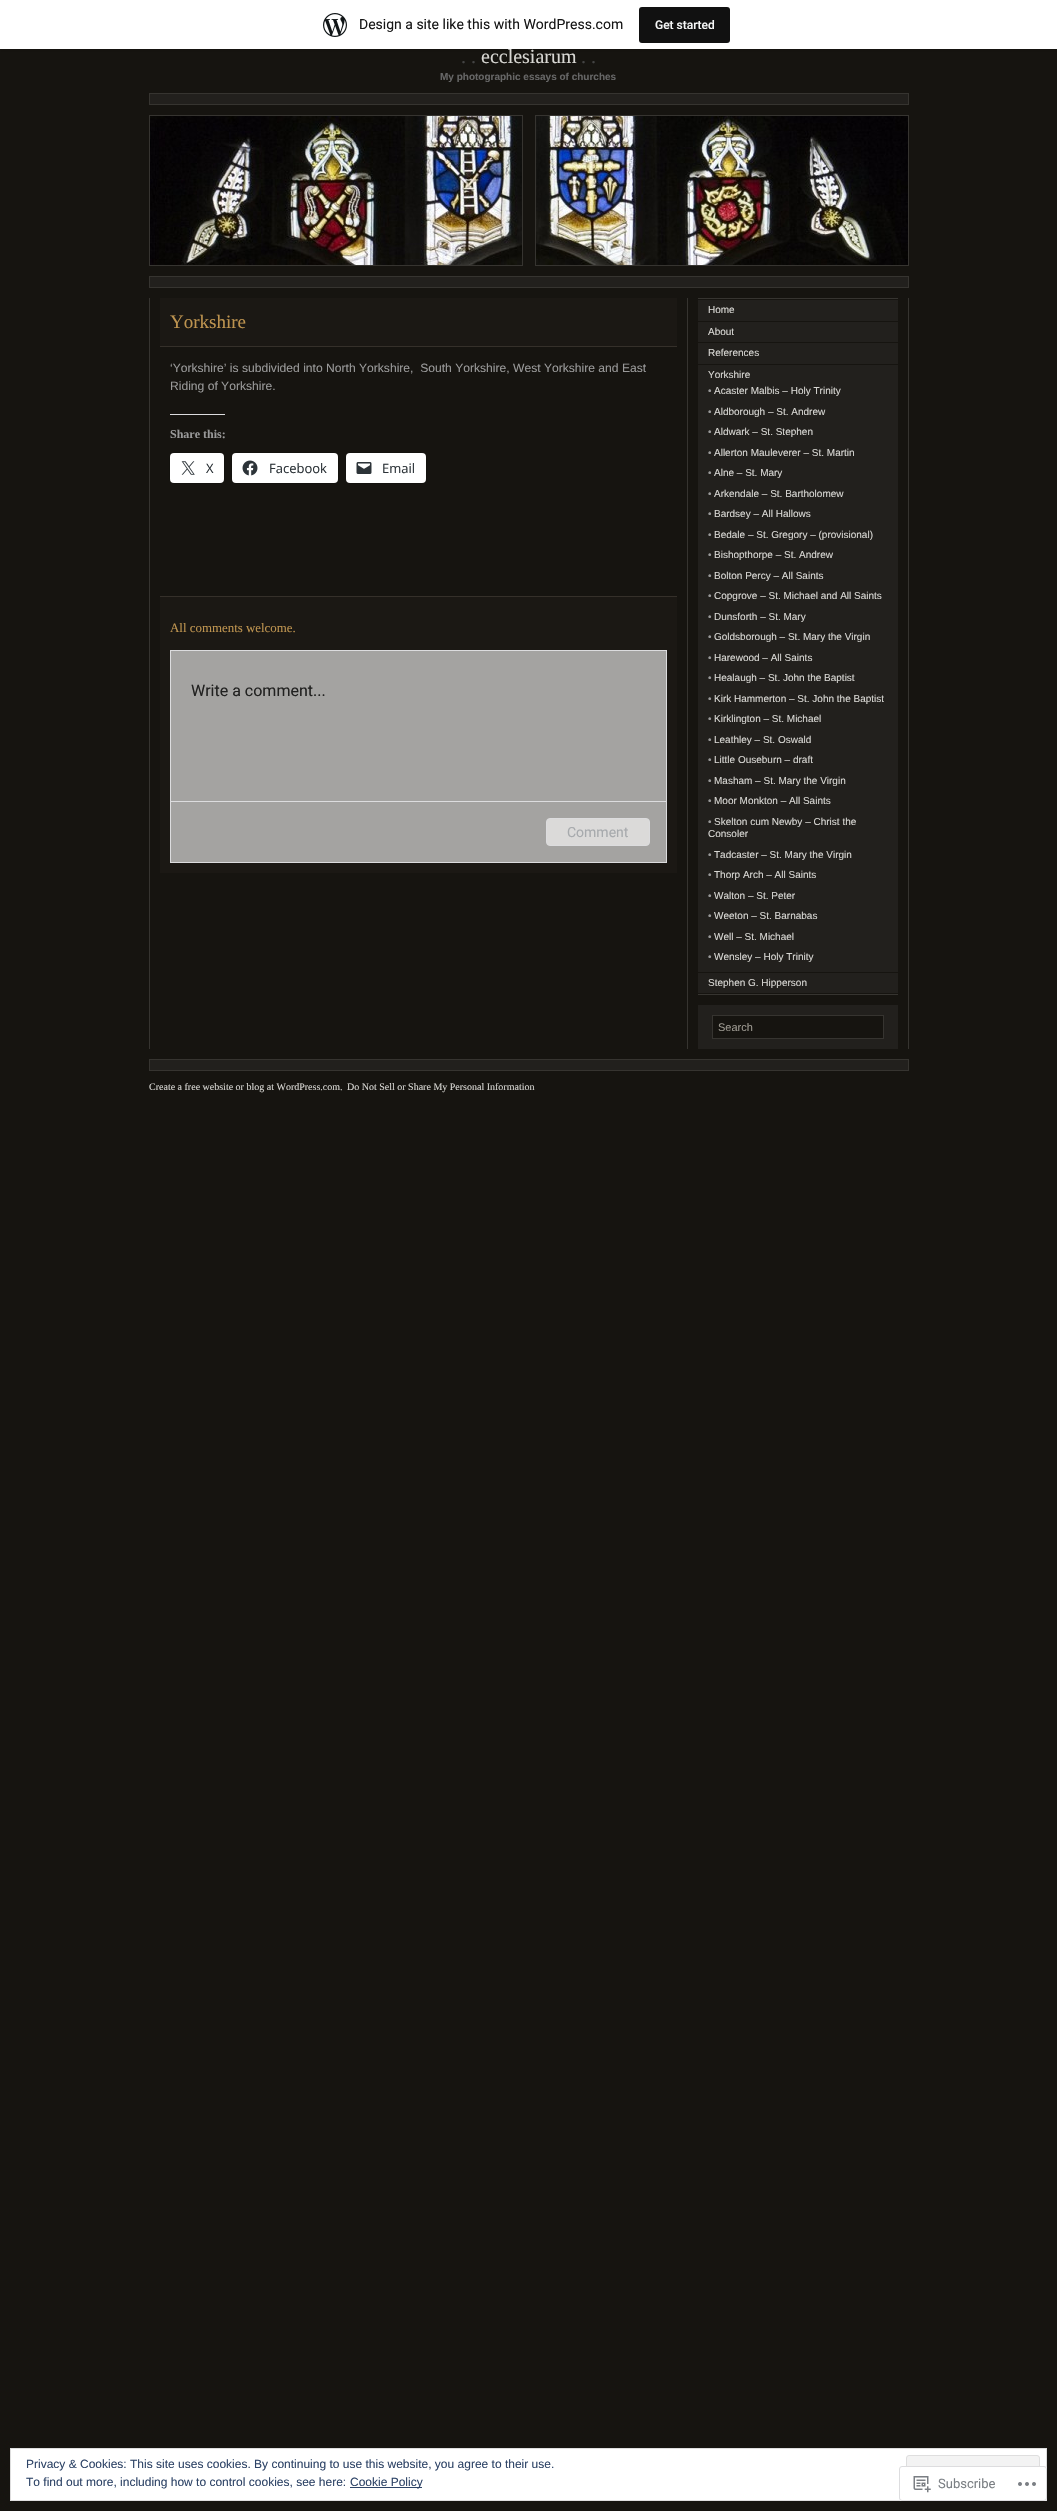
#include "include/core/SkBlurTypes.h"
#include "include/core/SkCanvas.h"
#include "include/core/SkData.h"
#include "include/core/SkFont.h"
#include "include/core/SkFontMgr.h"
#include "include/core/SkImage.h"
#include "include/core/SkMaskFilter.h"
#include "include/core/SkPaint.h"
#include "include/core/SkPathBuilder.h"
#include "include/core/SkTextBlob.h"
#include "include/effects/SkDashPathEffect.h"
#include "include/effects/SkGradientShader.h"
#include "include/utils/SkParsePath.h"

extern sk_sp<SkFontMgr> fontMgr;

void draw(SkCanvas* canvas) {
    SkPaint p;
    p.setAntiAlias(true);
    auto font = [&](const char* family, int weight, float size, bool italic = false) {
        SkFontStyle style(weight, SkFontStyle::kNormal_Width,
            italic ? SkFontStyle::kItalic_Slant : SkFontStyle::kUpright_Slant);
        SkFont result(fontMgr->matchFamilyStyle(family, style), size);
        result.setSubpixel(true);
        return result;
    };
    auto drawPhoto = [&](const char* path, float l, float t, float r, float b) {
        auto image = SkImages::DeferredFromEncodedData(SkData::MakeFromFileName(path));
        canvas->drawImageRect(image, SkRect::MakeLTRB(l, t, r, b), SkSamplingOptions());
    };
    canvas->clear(0xFF161410);
    p.setColor(0x14000000);
    canvas->drawPath(SkPathBuilder().moveTo(1, 49).lineTo(1, 52).lineTo(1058, 52).lineTo(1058, 3).lineTo(1057, 3).lineTo(1057, 49).close().detach(), p);
    p.setColor(0xFFFFFFFF);
    canvas->drawRect(SkRect::MakeLTRB(0, 0, 1057, 49), p);
    drawPhoto("media/1.png", 323, 13, 347, 37);
    auto font1 = font("Roboto", 400, 14);
    p.setColor(0xFF171717);
    canvas->drawString("Design a site like this with WordPress.com", 359, 29, font1, p);
    p.setColor(0xFF111111);
    canvas->drawRoundRect(SkRect::MakeLTRB(639, 7, 730, 43), 3, 3, p);
    auto font2 = font("Roboto", 500, 12);
    p.setColor(0xFFF6F7F7);
    canvas->drawString("Get started", 655, 29, font2, p);
    auto font3 = font("Liberation Serif", 400, 20);
    p.setColor(0xFF444444);
    canvas->drawString(". .", 461, 63, font3, p);
    p.setColor(0xFFD8D7D3);
    canvas->drawString("ecclesiarum", 481, 63, font3, p);
    p.setColor(0xFF444444);
    canvas->drawString(". .", 581, 63, font3, p);
    auto font4 = font("Liberation Sans", 700, 10);
    p.setColor(0xFF666666);
    canvas->drawString("My photographic essays of churches", 440, 80, font4, p);
    p.setColor(0xFF22201D);
    canvas->drawRect(SkRect::MakeLTRB(149.5f, 93.5f, 908.5f, 104.5f), p);
    p.setStyle(SkPaint::kStroke_Style);
    p.setStrokeWidth(1);
    p.setColor(0xFF363430);
    canvas->drawRect(SkRect::MakeLTRB(149.5f, 93.5f, 908.5f, 104.5f), p);
    drawPhoto("media/3.png", 150, 116, 908, 265);
    drawPhoto("media/2.png", 149, 115, 909, 266);
    p.setStyle(SkPaint::kFill_Style);
    p.setColor(0xFF22201D);
    canvas->drawRect(SkRect::MakeLTRB(149.5f, 276.5f, 908.5f, 287.5f), p);
    p.setStyle(SkPaint::kStroke_Style);
    p.setColor(0xFF363430);
    canvas->drawRect(SkRect::MakeLTRB(149.5f, 276.5f, 908.5f, 287.5f), p);
    drawPhoto("media/4.png", 149, 298, 909, 1049);
    p.setStyle(SkPaint::kFill_Style);
    p.setColor(0xFF1B1814);
    canvas->drawRect(SkRect::MakeLTRB(160, 298, 677, 346), p);
    p.setColor(0xFF35302A);
    canvas->drawRect(SkRect::MakeLTRB(160, 346, 677, 347), p);
    auto font5 = font("Liberation Serif", 400, 19);
    p.setColor(0xFFBD934F);
    canvas->drawString("Yorkshire", 170, 328, font5, p);
    auto font6 = font("Liberation Sans", 400, 12.1f);
    p.setColor(0xFF999999);
    canvas->drawString("‘Yorkshire’ is subdivided into North Yorkshire,  South Yorkshire, West Yorkshire and East", 170, 372, font6, p);
    canvas->drawString("Riding of Yorkshire.", 170, 390, font6, p);
    p.setColor(0xFFDCDCDE);
    canvas->drawRect(SkRect::MakeLTRB(170, 414, 225, 415), p);
    auto font7 = font("Liberation Serif", 700, 12);
    p.setColor(0xFF999999);
    canvas->drawString("Share this:", 170, 438, font7, p);
    p.setStyle(SkPaint::kStroke_Style);
    p.setColor(0xFF13120E);
    canvas->drawRoundRect(SkRect::MakeLTRB(169.5f, 452.5f, 224.5f, 483.5f), 4.5f, 4.5f, p);
    p.setStyle(SkPaint::kFill_Style);
    p.setColor(0xFFFFFFFF);
    canvas->drawRoundRect(SkRect::MakeLTRB(170, 453, 224, 483), 4, 4, p);
    drawPhoto("media/5.png", 181, 461, 195, 475);
    auto font8 = font("Open Sans", 400, 13);
    p.setColor(0xFF2C3338);
    canvas->drawString("X", 206, 473, font8, p);
    p.setStyle(SkPaint::kStroke_Style);
    p.setColor(0xFF13120E);
    canvas->drawRoundRect(SkRect::MakeLTRB(231.5f, 452.5f, 338.5f, 483.5f), 4.5f, 4.5f, p);
    p.setStyle(SkPaint::kFill_Style);
    p.setColor(0xFFFFFFFF);
    canvas->drawRoundRect(SkRect::MakeLTRB(232, 453, 338, 483), 4, 4, p);
    drawPhoto("media/6.png", 242, 460, 258, 476);
    p.setColor(0xFF2C3338);
    canvas->drawString("Facebook", 269, 473, font8, p);
    p.setStyle(SkPaint::kStroke_Style);
    p.setColor(0xFF13120E);
    canvas->drawRoundRect(SkRect::MakeLTRB(345.5f, 452.5f, 426.5f, 483.5f), 4.5f, 4.5f, p);
    p.setStyle(SkPaint::kFill_Style);
    p.setColor(0xFFFFFFFF);
    canvas->drawRoundRect(SkRect::MakeLTRB(346, 453, 426, 483), 4, 4, p);
    drawPhoto("media/7.png", 356, 462, 372, 474);
    p.setColor(0xFF2C3338);
    canvas->drawString("Email", 382, 473, font8, p);
    p.setColor(0xFF1B1814);
    canvas->drawRect(SkRect::MakeLTRB(160, 597, 677, 873), p);
    p.setColor(0xFF35302A);
    canvas->drawRect(SkRect::MakeLTRB(160, 596, 677, 597), p);
    auto font9 = font("Liberation Serif", 400, 12.9f);
    p.setColor(0xFFBD934F);
    canvas->drawString("All comments welcome.", 170, 632, font9, p);
    p.setColor(0xFFA4A3A1);
    canvas->drawRect(SkRect::MakeLTRB(170.5f, 650.5f, 666.5f, 862.5f), p);
    p.setStyle(SkPaint::kStroke_Style);
    p.setColor(0xFFDCDCDE);
    canvas->drawRect(SkRect::MakeLTRB(170.5f, 650.5f, 666.5f, 862.5f), p);
    auto font10 = font("Roboto", 400, 16);
    p.setStyle(SkPaint::kFill_Style);
    p.setColor(0xFF212120);
    canvas->drawString("Write a comment...", 191, 696, font10, p);
    p.setColor(0xFFDCDCDE);
    canvas->drawRect(SkRect::MakeLTRB(171, 801, 666, 802), p);
    p.setColor(0xFFDBDAD9);
    canvas->drawRoundRect(SkRect::MakeLTRB(546.5f, 818.5f, 649.5f, 845.5f), 3.5f, 3.5f, p);
    p.setStyle(SkPaint::kStroke_Style);
    p.setColor(0xFFDCDCDE);
    canvas->drawRoundRect(SkRect::MakeLTRB(546.5f, 818.5f, 649.5f, 845.5f), 3.5f, 3.5f, p);
    p.setStyle(SkPaint::kFill_Style);
    p.setColor(0xFFA7AAAD);
    canvas->drawString("Comment", 567, 837, font1, p);
    {
        const struct { float l, t, r, b; SkColor color; } items[] = {
            {698, 298, 898, 299, 0xFF363430},
            {698, 994, 898, 995, 0xFF363430},
            {698, 300, 898, 321, 0xFF22201D},
        };
        for (auto [l, t, r, b, color] : items) {
            p.setColor(color);
            canvas->drawRect(SkRect::MakeLTRB(l, t, r, b), p);
        }
    }
    auto font11 = font("Liberation Sans", 400, 10);
    p.setColor(0xFFD8D7D3);
    canvas->drawString("Home", 708, 313, font11, p);
    p.setColor(0xFF22201D);
    canvas->drawRect(SkRect::MakeLTRB(698, 322, 898, 342), p);
    p.setColor(0xFFD8D7D3);
    canvas->drawString("About", 708, 335, font11, p);
    p.setColor(0xFF22201D);
    canvas->drawRect(SkRect::MakeLTRB(698, 343, 898, 364), p);
    p.setColor(0xFFD8D7D3);
    canvas->drawString("References", 708, 356, font11, p);
    p.setColor(0xFF22201D);
    canvas->drawRect(SkRect::MakeLTRB(698, 365, 898, 972), p);
    p.setColor(0xFFD8D7D3);
    canvas->drawString("Yorkshire", 708, 378, font11, p);
    p.setColor(0xFF999999);
    canvas->drawString("•", 708, 394, font11, p);
    p.setColor(0xFFD8D7D3);
    canvas->drawString("Acaster Malbis – Holy Trinity", 714, 394, font11, p);
    p.setColor(0xFF999999);
    canvas->drawString("•", 708, 415, font11, p);
    p.setColor(0xFFD8D7D3);
    canvas->drawString("Aldborough – St. Andrew", 714, 415, font11, p);
    p.setColor(0xFF999999);
    canvas->drawString("•", 708, 435, font11, p);
    p.setColor(0xFFD8D7D3);
    canvas->drawString("Aldwark – St. Stephen", 714, 435, font11, p);
    p.setColor(0xFF999999);
    canvas->drawString("•", 708, 456, font11, p);
    p.setColor(0xFFD8D7D3);
    canvas->drawString("Allerton Mauleverer – St. Martin", 714, 456, font11, p);
    p.setColor(0xFF999999);
    canvas->drawString("•", 708, 476, font11, p);
    p.setColor(0xFFD8D7D3);
    canvas->drawString("Alne – St. Mary", 714, 476, font11, p);
    p.setColor(0xFF999999);
    canvas->drawString("•", 708, 497, font11, p);
    p.setColor(0xFFD8D7D3);
    canvas->drawString("Arkendale – St. Bartholomew", 714, 497, font11, p);
    p.setColor(0xFF999999);
    canvas->drawString("•", 708, 517, font11, p);
    p.setColor(0xFFD8D7D3);
    canvas->drawString("Bardsey – All Hallows", 714, 517, font11, p);
    p.setColor(0xFF999999);
    canvas->drawString("•", 708, 538, font11, p);
    p.setColor(0xFFD8D7D3);
    canvas->drawString("Bedale – St. Gregory – (provisional)", 714, 538, font11, p);
    p.setColor(0xFF999999);
    canvas->drawString("•", 708, 558, font11, p);
    p.setColor(0xFFD8D7D3);
    canvas->drawString("Bishopthorpe – St. Andrew", 714, 558, font11, p);
    p.setColor(0xFF999999);
    canvas->drawString("•", 708, 579, font11, p);
    p.setColor(0xFFD8D7D3);
    canvas->drawString("Bolton Percy – All Saints", 714, 579, font11, p);
    p.setColor(0xFF999999);
    canvas->drawString("•", 708, 599, font11, p);
    p.setColor(0xFFD8D7D3);
    canvas->drawString("Copgrove – St. Michael and All Saints", 714, 599, font11, p);
    p.setColor(0xFF999999);
    canvas->drawString("•", 708, 620, font11, p);
    p.setColor(0xFFD8D7D3);
    canvas->drawString("Dunsforth – St. Mary", 714, 620, font11, p);
    p.setColor(0xFF999999);
    canvas->drawString("•", 708, 640, font11, p);
    p.setColor(0xFFD8D7D3);
    canvas->drawString("Goldsborough – St. Mary the Virgin", 714, 640, font11, p);
    p.setColor(0xFF999999);
    canvas->drawString("•", 708, 661, font11, p);
    p.setColor(0xFFD8D7D3);
    canvas->drawString("Harewood – All Saints", 714, 661, font11, p);
    p.setColor(0xFF999999);
    canvas->drawString("•", 708, 681, font11, p);
    p.setColor(0xFFD8D7D3);
    canvas->drawString("Healaugh – St. John the Baptist", 714, 681, font11, p);
    p.setColor(0xFF999999);
    canvas->drawString("•", 708, 702, font11, p);
    p.setColor(0xFFD8D7D3);
    canvas->drawString("Kirk Hammerton – St. John the Baptist", 714, 702, font11, p);
    p.setColor(0xFF999999);
    canvas->drawString("•", 708, 722, font11, p);
    p.setColor(0xFFD8D7D3);
    canvas->drawString("Kirklington – St. Michael", 714, 722, font11, p);
    p.setColor(0xFF999999);
    canvas->drawString("•", 708, 743, font11, p);
    p.setColor(0xFFD8D7D3);
    canvas->drawString("Leathley – St. Oswald", 714, 743, font11, p);
    p.setColor(0xFF999999);
    canvas->drawString("•", 708, 763, font11, p);
    p.setColor(0xFFD8D7D3);
    canvas->drawString("Little Ouseburn – draft", 714, 763, font11, p);
    p.setColor(0xFF999999);
    canvas->drawString("•", 708, 784, font11, p);
    p.setColor(0xFFD8D7D3);
    canvas->drawString("Masham – St. Mary the Virgin", 714, 784, font11, p);
    p.setColor(0xFF999999);
    canvas->drawString("•", 708, 804, font11, p);
    p.setColor(0xFFD8D7D3);
    canvas->drawString("Moor Monkton – All Saints", 714, 804, font11, p);
    p.setColor(0xFF999999);
    canvas->drawString("•", 708, 825, font11, p);
    p.setColor(0xFFD8D7D3);
    canvas->drawString("Skelton cum Newby – Christ the", 714, 825, font11, p);
    canvas->drawString("Consoler", 708, 837, font11, p);
    p.setColor(0xFF999999);
    canvas->drawString("•", 708, 858, font11, p);
    p.setColor(0xFFD8D7D3);
    canvas->drawString("Tadcaster – St. Mary the Virgin", 714, 858, font11, p);
    p.setColor(0xFF999999);
    canvas->drawString("•", 708, 878, font11, p);
    p.setColor(0xFFD8D7D3);
    canvas->drawString("Thorp Arch – All Saints", 714, 878, font11, p);
    p.setColor(0xFF999999);
    canvas->drawString("•", 708, 899, font11, p);
    p.setColor(0xFFD8D7D3);
    canvas->drawString("Walton – St. Peter", 714, 899, font11, p);
    p.setColor(0xFF999999);
    canvas->drawString("•", 708, 919, font11, p);
    p.setColor(0xFFD8D7D3);
    canvas->drawString("Weeton – St. Barnabas", 714, 919, font11, p);
    p.setColor(0xFF999999);
    canvas->drawString("•", 708, 940, font11, p);
    p.setColor(0xFFD8D7D3);
    canvas->drawString("Well – St. Michael", 714, 940, font11, p);
    p.setColor(0xFF999999);
    canvas->drawString("•", 708, 960, font11, p);
    p.setColor(0xFFD8D7D3);
    canvas->drawString("Wensley – Holy Trinity", 714, 960, font11, p);
    p.setColor(0xFF22201D);
    canvas->drawRect(SkRect::MakeLTRB(698, 973, 898, 993), p);
    p.setColor(0xFFD8D7D3);
    canvas->drawString("Stephen G. Hipperson", 708, 986, font11, p);
    p.setColor(0xFF22201D);
    canvas->drawRect(SkRect::MakeLTRB(698, 1005, 898, 1049), p);
    p.setColor(0xFF161410);
    canvas->drawRect(SkRect::MakeLTRB(712.5f, 1015.5f, 883.5f, 1038.5f), p);
    p.setStyle(SkPaint::kStroke_Style);
    p.setColor(0xFF363430);
    canvas->drawRect(SkRect::MakeLTRB(712.5f, 1015.5f, 883.5f, 1038.5f), p);
    auto font12 = font("Liberation Sans", 400, 11);
    p.setStyle(SkPaint::kFill_Style);
    p.setColor(0xFF9C9890);
    canvas->drawString("Search", 718, 1031, font12, p);
    p.setColor(0xFF22201D);
    canvas->drawRect(SkRect::MakeLTRB(149.5f, 1059.5f, 908.5f, 1070.5f), p);
    p.setStyle(SkPaint::kStroke_Style);
    p.setColor(0xFF363430);
    canvas->drawRect(SkRect::MakeLTRB(149.5f, 1059.5f, 908.5f, 1070.5f), p);
    auto font13 = font("Liberation Serif", 400, 10);
    p.setStyle(SkPaint::kFill_Style);
    p.setColor(0xFFD8D7D3);
    canvas->drawString("Create a free website or blog at WordPress.com.", 149, 1090, font13, p);
    canvas->drawString("Do Not Sell or Share My Personal Information", 347, 1090, font13, p);
    p.setColor(0xFFFFFFFF);
    canvas->drawRect(SkRect::MakeLTRB(10.5f, 2448.5f, 1046.5f, 2500.5f), p);
    p.setStyle(SkPaint::kStroke_Style);
    p.setColor(0xFFDEDEDE);
    canvas->drawRect(SkRect::MakeLTRB(10.5f, 2448.5f, 1046.5f, 2500.5f), p);
    auto font14 = font("Liberation Sans", 400, 12);
    p.setStyle(SkPaint::kFill_Style);
    p.setColor(0xFF2E4467);
    canvas->drawString("Privacy & Cookies: This site uses cookies. By continuing to use this website, you agree to their use.", 26, 2468, font14, p);
    p.setColor(0xFFF3F3F3);
    canvas->drawRoundRect(SkRect::MakeLTRB(906.5f, 2455.5f, 1039.5f, 2493.5f), 2.5f, 2.5f, p);
    p.setStyle(SkPaint::kStroke_Style);
    p.setColor(0xFFDEDEDE);
    canvas->drawRoundRect(SkRect::MakeLTRB(906.5f, 2455.5f, 1039.5f, 2493.5f), 2.5f, 2.5f, p);
    p.setStyle(SkPaint::kFill_Style);
    p.setColor(0xFF2E4467);
    canvas->drawString("To find out more, including how to control cookies, see here:", 26, 2486, font14, p);
    canvas->drawRect(SkRect::MakeLTRB(350, 2487, 422, 2488), p);
    canvas->drawString("Cookie Policy", 350, 2486, font14, p);
    p.setColor(0xFAFFFFFF);
    canvas->drawRoundRect(SkRect::MakeLTRB(899, 2466, 1047, 2501), 3, 3, p);
    p.setStyle(SkPaint::kStroke_Style);
    p.setColor(0xFADCDCDE);
    canvas->drawRoundRect(SkRect::MakeLTRB(899.5f, 2466.5f, 1046.5f, 2500.5f), 2.5f, 2.5f, p);
    drawPhoto("media/8.png", 913, 2476, 931, 2493);
    auto font15 = font("Roboto", 400, 13);
    p.setStyle(SkPaint::kFill_Style);
    p.setColor(0xFF7B7F84);
    canvas->drawString("Subscribe", 938, 2488, font15, p);
    drawPhoto("media/9.png", 1018, 2482, 1036, 2486);
}
